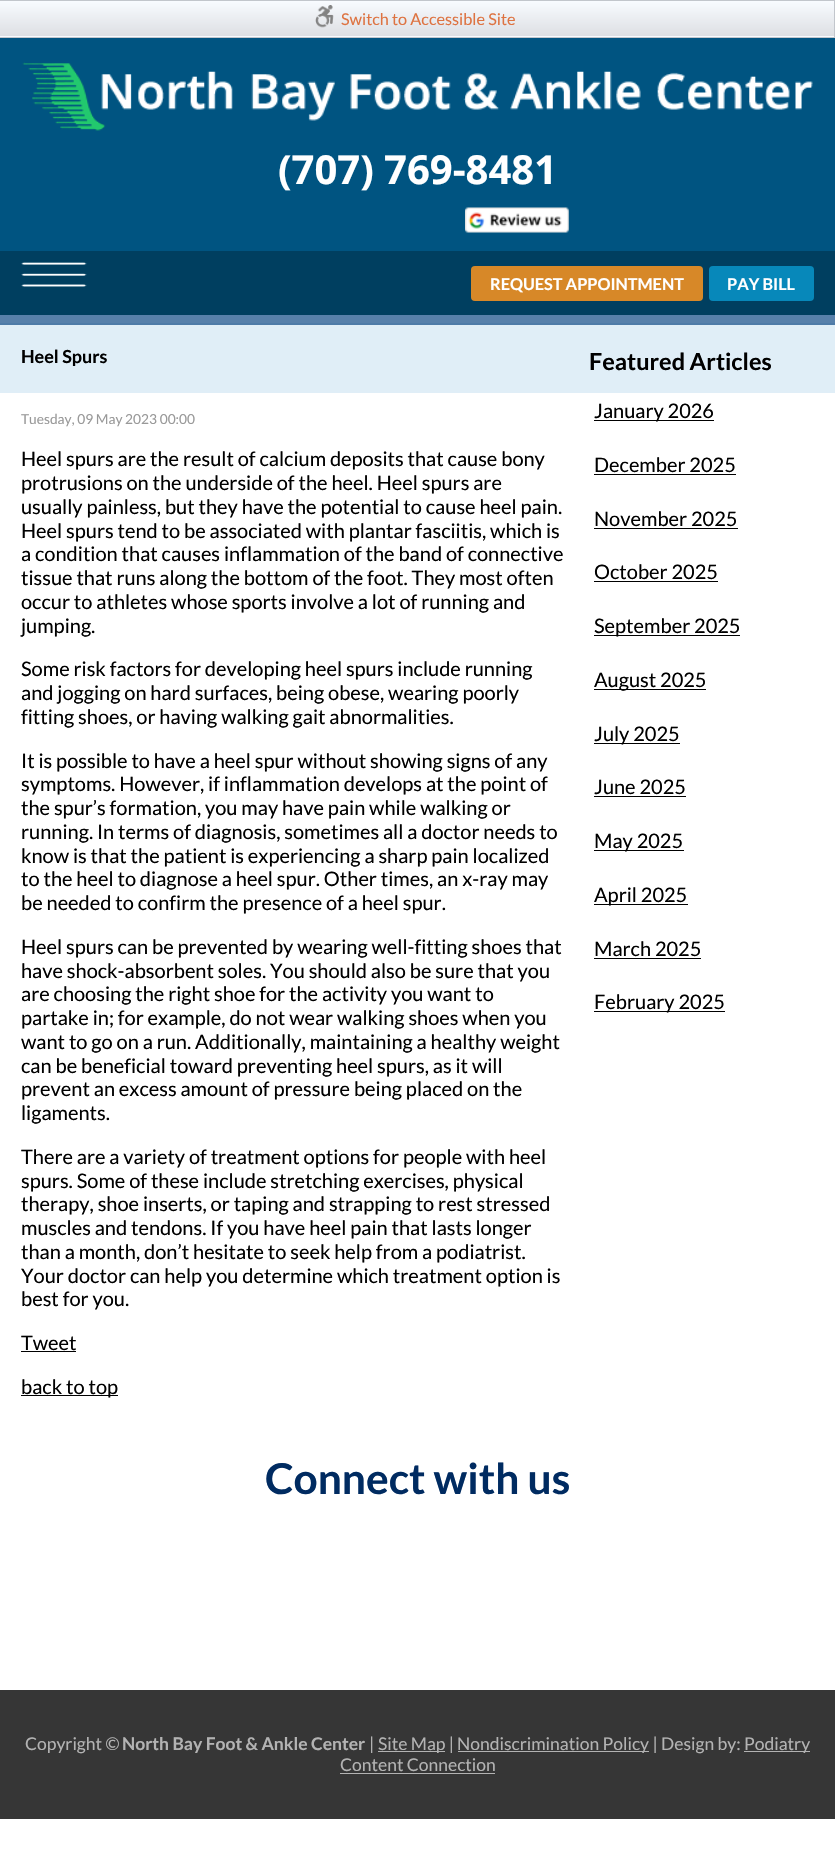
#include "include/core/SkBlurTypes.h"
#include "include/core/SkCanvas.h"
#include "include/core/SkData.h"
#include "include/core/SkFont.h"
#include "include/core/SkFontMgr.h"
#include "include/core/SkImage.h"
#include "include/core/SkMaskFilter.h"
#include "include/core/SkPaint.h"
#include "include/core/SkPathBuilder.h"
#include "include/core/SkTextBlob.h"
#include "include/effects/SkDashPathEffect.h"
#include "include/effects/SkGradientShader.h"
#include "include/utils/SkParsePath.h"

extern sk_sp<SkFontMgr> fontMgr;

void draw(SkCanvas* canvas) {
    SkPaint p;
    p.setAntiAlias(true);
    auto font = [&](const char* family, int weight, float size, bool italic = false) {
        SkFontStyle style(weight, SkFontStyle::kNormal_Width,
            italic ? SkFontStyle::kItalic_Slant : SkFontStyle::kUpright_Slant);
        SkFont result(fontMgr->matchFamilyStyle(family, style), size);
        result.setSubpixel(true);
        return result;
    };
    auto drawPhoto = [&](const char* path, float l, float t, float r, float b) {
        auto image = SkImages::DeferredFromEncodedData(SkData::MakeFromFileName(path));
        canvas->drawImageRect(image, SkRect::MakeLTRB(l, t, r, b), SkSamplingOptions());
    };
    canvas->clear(0xFFFFFFFF);
    p.setColor(0xFF5780AA);
    canvas->drawRect(SkRect::MakeLTRB(0, 315, 835, 323), p);
    {
        const SkColor colors[] = {0xFFF8FBFF, 0xFFDDDFE3};
        const float stops[] = {0, 1};
        const SkPoint ends[] = {{416, 1.2f}, {416, 36}};
        p.setShader(SkGradientShader::MakeLinear(ends, colors, stops, 2, SkTileMode::kClamp));
        p.setAlpha(255);
    }
    canvas->drawRect(SkRect::MakeLTRB(0, 1, 834, 36), p);
    {
        const SkColor colors[] = {0xFFF8FBFF, 0xFFDDDFE3};
        const float stops[] = {0, 1};
        const SkPoint ends[] = {{416, 36}, {416, 71}};
        p.setShader(SkGradientShader::MakeLinear(ends, colors, stops, 2, SkTileMode::kClamp));
        p.setAlpha(255);
    }
    canvas->drawRect(SkRect::MakeLTRB(0, 36, 835, 37), p);
    p.setStyle(SkPaint::kStroke_Style);
    p.setStrokeWidth(1);
    p.setShader(nullptr);
    p.setColor(0xFFC2C6CC);
    canvas->drawRect(SkRect::MakeLTRB(-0.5f, 0.5f, 834.5f, 37.5f), p);
    drawPhoto("media/1.png", 315, 5, 334, 28);
    auto font1 = font("Lato", 400, 16.25f);
    p.setStyle(SkPaint::kFill_Style);
    p.setColor(0xFFDE7341);
    canvas->drawString("Switch to Accessible Site", 341, 25, font1, p);
    p.setColor(0xFF005481);
    canvas->drawRect(SkRect::MakeLTRB(0, 38, 835, 251), p);
    drawPhoto("media/2.png", 22, 62, 813, 131);
    auto font2 = font("Open Sans", 700, 40);
    p.setColor(0xFFFFFFFF);
    canvas->drawString("(707) 769-8481", 278, 184, font2, p);
    drawPhoto("media/3.png", 465, 207, 569, 233);
    p.setColor(0xFF003F60);
    canvas->drawRect(SkRect::MakeLTRB(0, 251, 835, 315), p);
    drawPhoto("media/4.png", 21, 262, 87, 287);
    p.setColor(0xFFD78828);
    canvas->drawRoundRect(SkRect::MakeLTRB(471, 266, 703, 301), 4, 4, p);
    auto font3 = font("Lato", 700, 16.25f);
    p.setColor(0xFFFFFFFF);
    canvas->drawString("REQUEST APPOINTMENT", 490, 290, font3, p);
    p.setColor(0xFF0788BA);
    canvas->drawRoundRect(SkRect::MakeLTRB(709, 266, 814, 301), 4, 4, p);
    p.setColor(0xFFFFFFFF);
    canvas->drawString("PAY BILL", 727, 290, font3, p);
    p.setColor(0xFFE0EEF7);
    canvas->drawRect(SkRect::MakeLTRB(0, 325, 835, 393), p);
    p.setColor(0xFF4E7BA7);
    canvas->drawRect(SkRect::MakeLTRB(0, 323, 835, 325), p);
    auto font4 = font("Lato", 700, 18);
    p.setColor(0xFF000000);
    canvas->drawString("Heel Spurs", 21, 363, font4, p);
    auto font5 = font("Lato", 400, 13.75f);
    p.setColor(0xFF999999);
    canvas->drawString("Tuesday, 09 May 2023 00:00", 21, 424, font5, p);
    auto font6 = font("Lato", 400, 20);
    p.setColor(0xFF000000);
    {
        const struct { const char* s; float x, y; } items[] = {
            {"Heel spurs are the result of calcium deposits that cause bony", 21, 466},
            {"protrusions on the underside of the heel. Heel spurs are", 21, 490},
            {"usually painless, but they have the potential to cause heel pain.", 21, 514},
            {"Heel spurs tend to be associated with plantar fasciitis, which is", 21, 538},
            {"a condition that causes inflammation of the band of connective", 21, 561},
            {"tissue that runs along the bottom of the foot. They most often", 21, 585},
            {"occur to athletes whose sports involve a lot of running and", 21, 609},
            {"jumping.", 21, 633},
            {"Some risk factors for developing heel spurs include running", 21, 676},
            {"and jogging on hard surfaces, being obese, wearing poorly", 21, 700},
            {"fitting shoes, or having walking gait abnormalities.", 21, 724},
            {"It is possible to have a heel spur without showing signs of any", 21, 768},
            {"symptoms. However, if inflammation develops at the point of", 21, 791},
            {"the spur’s formation, you may have pain while walking or", 21, 815},
            {"running. In terms of diagnosis, sometimes all a doctor needs to", 21, 839},
            {"know is that the patient is experiencing a sharp pain localized", 21, 863},
            {"to the heel to diagnose a heel spur. Other times, an x-ray may", 21, 886},
            {"be needed to confirm the presence of a heel spur.", 21, 910},
            {"Heel spurs can be prevented by wearing well-fitting shoes that", 21, 954},
            {"have shock-absorbent soles. You should also be sure that you", 21, 978},
            {"are choosing the right shoe for the activity you want to", 21, 1001},
            {"partake in; for example, do not wear walking shoes when you", 21, 1025},
            {"want to go on a run. Additionally, maintaining a healthy weight", 21, 1049},
            {"can be beneficial toward preventing heel spurs, as it will", 21, 1073},
            {"prevent an excess amount of pressure being placed on the", 21, 1096},
            {"ligaments.", 21, 1120},
            {"There are a variety of treatment options for people with heel", 21, 1164},
            {"spurs. Some of these include stretching exercises, physical", 21, 1188},
            {"therapy, shoe inserts, or taping and strapping to rest stressed", 21, 1211},
            {"muscles and tendons. If you have heel pain that lasts longer", 21, 1235},
            {"than a month, don’t hesitate to seek help from a podiatrist.", 21, 1259},
            {"Your doctor can help you determine which treatment option is", 21, 1283},
            {"best for you.", 21, 1306},
            {"Tweet", 21, 1350},
        };
        for (auto [s, x, y] : items) {
            canvas->drawString(s, x, y, font6, p);
        }
    }
    canvas->drawRect(SkRect::MakeLTRB(21, 1351, 76, 1352), p);
    canvas->drawRect(SkRect::MakeLTRB(21, 1395, 118, 1396), p);
    canvas->drawString("back to top", 21, 1394, font6, p);
    auto font7 = font("Lato", 700, 23.5f);
    canvas->drawString("Featured Articles", 589, 370, font7, p);
    canvas->drawRect(SkRect::MakeLTRB(594, 420, 714, 421), p);
    canvas->drawString("January 2026", 594, 418, font6, p);
    canvas->drawString("December 2025", 594, 472, font6, p);
    canvas->drawRect(SkRect::MakeLTRB(594, 474, 736, 475), p);
    canvas->drawString("November 2025", 594, 526, font6, p);
    canvas->drawRect(SkRect::MakeLTRB(594, 528, 738, 529), p);
    canvas->drawString("October 2025", 594, 579, font6, p);
    canvas->drawRect(SkRect::MakeLTRB(594, 581, 718, 582), p);
    canvas->drawRect(SkRect::MakeLTRB(594, 635, 740, 636), p);
    canvas->drawString("September 2025", 594, 633, font6, p);
    canvas->drawRect(SkRect::MakeLTRB(594, 689, 706, 690), p);
    canvas->drawString("August 2025", 594, 687, font6, p);
    canvas->drawRect(SkRect::MakeLTRB(594, 743, 680, 744), p);
    canvas->drawString("July 2025", 594, 741, font6, p);
    canvas->drawString("June 2025", 594, 794, font6, p);
    canvas->drawRect(SkRect::MakeLTRB(594, 796, 686, 797), p);
    canvas->drawRect(SkRect::MakeLTRB(594, 850, 684, 851), p);
    canvas->drawString("May 2025", 594, 848, font6, p);
    canvas->drawRect(SkRect::MakeLTRB(594, 904, 688, 905), p);
    canvas->drawString("April 2025", 594, 902, font6, p);
    canvas->drawString("March 2025", 594, 956, font6, p);
    canvas->drawRect(SkRect::MakeLTRB(594, 958, 701, 959), p);
    canvas->drawRect(SkRect::MakeLTRB(594, 1011, 725, 1012), p);
    canvas->drawString("February 2025", 594, 1009, font6, p);
    auto font8 = font("Lato", 700, 42.5f);
    p.setColor(0xFF002B61);
    canvas->drawString("Connect with us", 265, 1494, font8, p);
    p.setColor(0xFF363636);
    canvas->drawRect(SkRect::MakeLTRB(0, 1690, 835, 1819), p);
    auto font9 = font("Lato", 400, 17.5f);
    p.setColor(0xFFB3B3B3);
    canvas->drawString("Copyright ©", 25, 1750, font9, p);
    auto font10 = font("Lato", 700, 17.5f);
    canvas->drawString("North Bay Foot & Ankle Center", 122, 1750, font10, p);
    canvas->drawString("|", 369, 1750, font9, p);
    canvas->drawRect(SkRect::MakeLTRB(378, 1751, 445, 1752), p);
    canvas->drawString("Site Map |", 378, 1750, font9, p);
    canvas->drawRect(SkRect::MakeLTRB(458, 1751, 649, 1752), p);
    canvas->drawString("Nondiscrimination Policy | Design by:", 457, 1750, font9, p);
    canvas->drawRect(SkRect::MakeLTRB(744, 1751, 810, 1752), p);
    canvas->drawString("Podiatry", 744, 1750, font9, p);
    canvas->drawString("Content Connection", 340, 1771, font9, p);
    canvas->drawRect(SkRect::MakeLTRB(340, 1773, 495, 1774), p);
}
